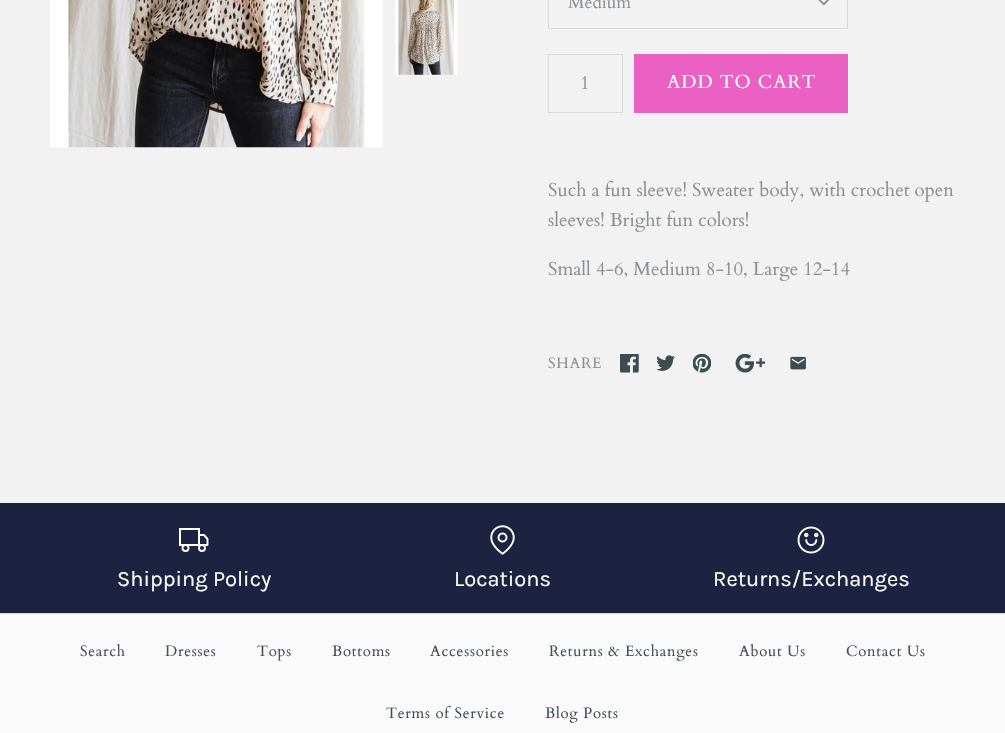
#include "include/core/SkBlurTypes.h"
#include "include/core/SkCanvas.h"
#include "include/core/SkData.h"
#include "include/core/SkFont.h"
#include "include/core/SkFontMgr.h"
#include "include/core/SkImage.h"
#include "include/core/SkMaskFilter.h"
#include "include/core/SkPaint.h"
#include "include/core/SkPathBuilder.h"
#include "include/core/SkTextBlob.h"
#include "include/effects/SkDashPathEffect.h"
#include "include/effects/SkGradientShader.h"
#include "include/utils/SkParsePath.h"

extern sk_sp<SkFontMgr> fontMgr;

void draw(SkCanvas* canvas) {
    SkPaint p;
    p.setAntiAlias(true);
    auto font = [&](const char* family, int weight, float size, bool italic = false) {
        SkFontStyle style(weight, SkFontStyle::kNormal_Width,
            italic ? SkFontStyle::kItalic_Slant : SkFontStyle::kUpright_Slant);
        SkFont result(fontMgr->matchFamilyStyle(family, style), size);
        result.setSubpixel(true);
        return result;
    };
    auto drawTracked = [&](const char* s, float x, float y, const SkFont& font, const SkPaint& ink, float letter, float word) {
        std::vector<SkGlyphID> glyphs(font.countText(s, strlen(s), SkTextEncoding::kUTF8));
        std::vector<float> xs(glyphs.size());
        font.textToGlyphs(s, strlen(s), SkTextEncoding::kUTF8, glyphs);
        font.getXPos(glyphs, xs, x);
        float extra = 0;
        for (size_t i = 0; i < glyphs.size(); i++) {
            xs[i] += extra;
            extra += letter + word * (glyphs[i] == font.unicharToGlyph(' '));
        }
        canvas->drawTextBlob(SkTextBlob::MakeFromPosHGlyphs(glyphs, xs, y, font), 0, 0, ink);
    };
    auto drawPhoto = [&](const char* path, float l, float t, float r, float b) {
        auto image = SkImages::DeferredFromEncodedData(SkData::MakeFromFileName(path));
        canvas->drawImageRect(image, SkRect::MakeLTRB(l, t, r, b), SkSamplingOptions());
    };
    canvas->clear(0xFFF2F2F2);
    drawPhoto("media/1.png", 50, 0, 383, 148);
    drawPhoto("media/2.png", 395, 0, 458, 75);
    p.setStyle(SkPaint::kStroke_Style);
    p.setStrokeWidth(1);
    p.setColor(0xFFD8D9DA);
    canvas->drawRect(SkRect::MakeLTRB(548.5f, -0.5f, 847.5f, 28.5f), p);
    auto font1 = font("Cardo", 400, 17.5f);
    p.setStyle(SkPaint::kFill_Style);
    p.setColor(0xFF8A8F93);
    canvas->drawString("Medium", 568, 8, font1, p);
    drawPhoto("media/3.png", 818, 0, 830, 6);
    p.setStyle(SkPaint::kStroke_Style);
    p.setColor(0xFFD8D9DA);
    canvas->drawRect(SkRect::MakeLTRB(548.5f, 54.5f, 622.5f, 112.5f), p);
    auto font2 = font("Cardo", 400, 18.75f);
    p.setStyle(SkPaint::kFill_Style);
    p.setColor(0xFF8A8F93);
    canvas->drawString("1", 580, 89, font2, p);
    p.setColor(0xFFEB61C3);
    canvas->drawRect(SkRect::MakeLTRB(634, 54, 848, 113), p);
    p.setColor(0xFFFFFFFF);
    drawTracked("ADD TO CART", 667, 88, font2, p, 1, 0);
    p.setColor(0xFF8A8F93);
    {
        const struct { const char* s; float x, y; } items[] = {
            {"Such a fun sleeve! Sweater body, with crochet open", 548, 196},
            {"sleeves! Bright fun colors!", 548, 226},
            {"Small 4-6, Medium 8-10, Large 12-14", 548, 275},
        };
        for (auto [s, x, y] : items) {
            canvas->drawString(s, x, y, font2, p);
        }
    }
    auto font3 = font("Cardo", 400, 15);
    drawTracked("SHARE", 548, 368, font3, p, 0.75f, 0);
    drawPhoto("media/4.png", 620, 354, 639, 373);
    drawPhoto("media/5.png", 656, 355, 675, 371);
    drawPhoto("media/6.png", 693, 354, 711, 373);
    drawPhoto("media/7.png", 735, 354, 766, 373);
    drawPhoto("media/8.png", 790, 356, 806, 370);
    p.setColor(0xFFFAFAFA);
    canvas->drawRect(SkRect::MakeLTRB(0, 614, 1005, 733), p);
    p.setColor(0xFF1C223F);
    canvas->drawRect(SkRect::MakeLTRB(0, 503, 1005, 613), p);
    p.setStyle(SkPaint::kStroke_Style);
    p.setStrokeWidth(2);
    p.setColor(0xFFFFFFFF);
    canvas->drawRect(SkRect::MakeLTRB(180, 529, 199, 545), p);
    p.setStrokeWidth(1.9f);
    p.setStrokeCap(SkPaint::kRound_Cap);
    p.setStrokeJoin(SkPaint::kRound_Join);
    canvas->drawPath(SkPathBuilder().moveTo(199, 535).lineTo(204, 535).lineTo(207.5f, 539).lineTo(207.5f, 545).lineTo(199, 545).close().detach(), p);
    p.setStrokeCap(SkPaint::kButt_Cap);
    p.setStrokeJoin(SkPaint::kMiter_Join);
    canvas->drawCircle(185.5f, 548, 3, p);
    canvas->drawCircle(202, 548, 3, p);
    auto font4 = font("Karla", 400, 21.9f);
    p.setStyle(SkPaint::kFill_Style);
    canvas->drawString("Shipping Policy", 117, 586, font4, p);
    drawPhoto("media/9.png", 490, 525, 515, 555);
    canvas->drawString("Locations", 454, 586, font4, p);
    drawPhoto("media/10.png", 797, 526, 825, 554);
    canvas->drawString("Returns/Exchanges", 713, 586, font4, p);
    p.setColor(0xFFD1D6D9);
    canvas->drawRect(SkRect::MakeLTRB(0, 613, 1005, 614), p);
    p.setColor(0xFF3F4B57);
    {
        const struct { const char* s; float x, y; } items[] = {
            {"Search", 80, 656},
            {"Dresses", 165, 656},
            {"Tops", 257, 656},
            {"Bottoms", 332, 656},
            {"Accessories", 430, 656},
            {"Returns & Exchanges", 549, 656},
            {"About Us", 739, 656},
            {"Contact Us", 846, 656},
            {"Terms of Service", 386, 718},
            {"Blog Posts", 545, 718},
        };
        for (auto [s, x, y] : items) {
            drawTracked(s, x, y, font3, p, 0.75f, 0);
        }
    }
}
